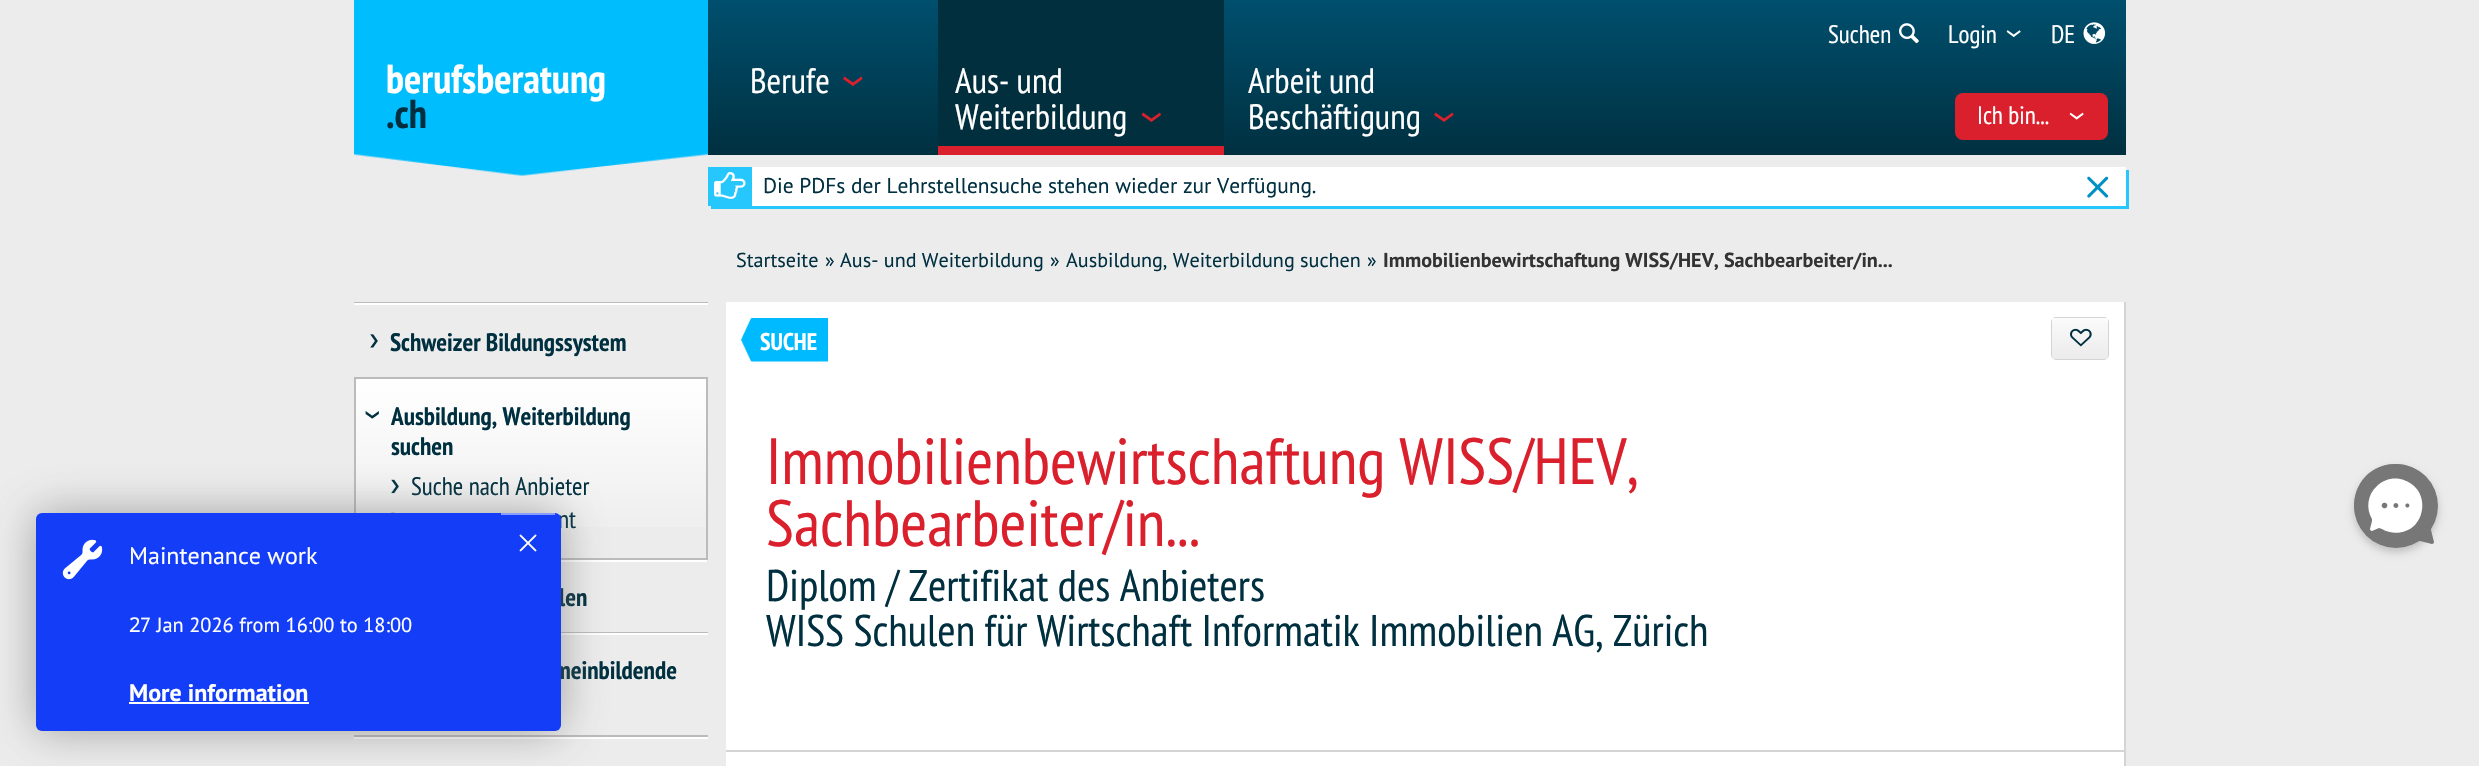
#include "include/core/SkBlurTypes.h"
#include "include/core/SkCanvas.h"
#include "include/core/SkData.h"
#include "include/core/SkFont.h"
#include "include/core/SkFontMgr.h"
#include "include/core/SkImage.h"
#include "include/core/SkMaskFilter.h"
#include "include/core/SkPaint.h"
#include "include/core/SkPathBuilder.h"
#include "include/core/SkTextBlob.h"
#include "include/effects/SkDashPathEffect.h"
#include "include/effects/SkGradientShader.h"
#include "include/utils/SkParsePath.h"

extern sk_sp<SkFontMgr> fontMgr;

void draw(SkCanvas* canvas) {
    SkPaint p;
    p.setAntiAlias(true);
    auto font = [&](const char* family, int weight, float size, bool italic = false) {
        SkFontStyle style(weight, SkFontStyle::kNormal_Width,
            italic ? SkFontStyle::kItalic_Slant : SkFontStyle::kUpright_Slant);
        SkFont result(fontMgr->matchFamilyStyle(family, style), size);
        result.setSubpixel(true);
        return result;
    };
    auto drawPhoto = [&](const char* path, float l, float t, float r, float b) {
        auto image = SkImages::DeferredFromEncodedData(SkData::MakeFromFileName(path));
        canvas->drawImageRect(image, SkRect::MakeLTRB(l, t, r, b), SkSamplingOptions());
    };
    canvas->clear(0xFFECECEC);
    drawPhoto("media/1.png", 354, 0, 708, 176);
    auto font1 = font("PT Sans Narrow", 700, 40.5f);
    p.setColor(0xFFFFFFFF);
    canvas->drawString("berufsberatung", 386, 93, font1, p);
    p.setColor(0xFF003040);
    canvas->drawString(".ch", 386, 128, font1, p);
    {
        const SkColor colors[] = {0xFF004F6E, 0xFF003040};
        const float stops[] = {0, 1};
        const SkPoint ends[] = {{1417, 0}, {1417, 155}};
        p.setShader(SkGradientShader::MakeLinear(ends, colors, stops, 2, SkTileMode::kClamp));
        p.setAlpha(255);
    }
    canvas->drawRect(SkRect::MakeLTRB(708, 0, 2126, 155), p);
    auto font2 = font("PT Sans Narrow", 400, 25.25f);
    p.setShader(nullptr);
    p.setColor(0xFFFFFFFF);
    canvas->drawString("Suchen", 1828, 43, font2, p);
    drawPhoto("media/2.png", 1899, 23, 1919, 44);
    canvas->drawString("Login", 1948, 43, font2, p);
    drawPhoto("media/3.png", 2006, 30, 2021, 38);
    canvas->drawString("DE", 2051, 43, font2, p);
    drawPhoto("media/4.png", 2083, 22, 2106, 44);
    p.setColor(0xFF003040);
    canvas->drawRect(SkRect::MakeLTRB(732, 146, 932, 147), p);
    auto font3 = font("PT Sans Narrow", 400, 35.25f);
    p.setColor(0xFFFFFFFF);
    canvas->drawString("Berufe", 750, 93, font3, p);
    p.setColor(0xFFDA202C);
    canvas->drawPath(SkPathBuilder().moveTo(844.5f, 76.5f).lineTo(853, 82.5f).lineTo(861.5f, 76.5f).lineTo(862.5f, 79).lineTo(853, 86).lineTo(843, 79).close().detach(), p);
    p.setColor(0xFF022F3E);
    canvas->drawRect(SkRect::MakeLTRB(938, 0, 1224, 146), p);
    p.setColor(0xFFDA202C);
    canvas->drawRect(SkRect::MakeLTRB(938, 146, 1224, 155), p);
    p.setColor(0xFFFFFFFF);
    canvas->drawString("Aus- und", 955, 93, font3, p);
    canvas->drawString("Weiterbildung", 955, 129, font3, p);
    p.setColor(0xFFDA202C);
    canvas->drawPath(SkPathBuilder().moveTo(1143, 112.5f).lineTo(1151.5f, 118.5f).lineTo(1160, 112.5f).lineTo(1161, 115).lineTo(1151.5f, 122).lineTo(1141.5f, 115).close().detach(), p);
    p.setColor(0xFF003040);
    canvas->drawRect(SkRect::MakeLTRB(1230, 146, 1518, 147), p);
    p.setColor(0xFFFFFFFF);
    canvas->drawString("Arbeit und", 1248, 93, font3, p);
    canvas->drawString("Beschäftigung", 1248, 129, font3, p);
    p.setColor(0xFFDA202C);
    canvas->drawPath(SkPathBuilder().moveTo(1435.5f, 112.5f).lineTo(1444, 118.5f).lineTo(1452.5f, 112.5f).lineTo(1453.5f, 115).lineTo(1444, 122).lineTo(1434, 115).close().detach(), p);
    canvas->drawRoundRect(SkRect::MakeLTRB(1955, 93, 2108, 140), 8, 8, p);
    p.setColor(0xFFFFFFFF);
    canvas->drawString("Ich bin...", 1977, 124, font2, p);
    drawPhoto("media/5.png", 2069, 112, 2084, 120);
    p.setColor(0xFF26C7FD);
    canvas->drawPath(SkPathBuilder().moveTo(711, 206).lineTo(711, 209).lineTo(2129, 209).lineTo(2129, 170).lineTo(2126, 170).lineTo(2126, 206).close().detach(), p);
    p.setColor(0xFFFFFFFF);
    canvas->drawRect(SkRect::MakeLTRB(752, 167, 2126, 206), p);
    p.setColor(0xFF26C7FD);
    canvas->drawRect(SkRect::MakeLTRB(708, 167, 752, 206), p);
    drawPhoto("media/6.png", 714, 172, 746, 199);
    auto font4 = font("PT Sans", 400, 21.4f);
    p.setColor(0xFF003040);
    canvas->drawString("Die PDFs der Lehrstellensuche stehen wieder zur Verfügung.", 763, 193, font4, p);
    drawPhoto("media/7.png", 2087, 176, 2109, 198);
    auto font5 = font("PT Sans", 400, 20.15f);
    {
        const struct { const char* s; float x, y; } items[] = {
            {"Startseite", 736, 267},
            {"»", 825, 267},
            {"Aus- und Weiterbildung", 840, 267},
            {"»", 1050, 267},
            {"Ausbildung, Weiterbildung suchen", 1066, 267},
            {"»", 1367, 267},
        };
        for (auto [s, x, y] : items) {
            canvas->drawString(s, x, y, font5, p);
        }
    }
    auto font6 = font("PT Sans", 700, 20.15f);
    p.setColor(0xFF333333);
    canvas->drawString("Immobilienbewirtschaftung WISS/HEV, Sachbearbeiter/in...", 1383, 267, font6, p);
    p.setColor(0xFFBBBBBB);
    canvas->drawRect(SkRect::MakeLTRB(354, 302, 708, 303), p);
    p.setColor(0xFFFFFFFF);
    canvas->drawRect(SkRect::MakeLTRB(354, 303, 708, 305), p);
    drawPhoto("media/8.png", 370, 334, 378, 348);
    auto font7 = font("PT Sans Narrow", 700, 25.25f);
    p.setColor(0xFF003040);
    canvas->drawString("Schweizer Bildungssystem", 390, 351, font7, p);
    {
        const SkColor colors[] = {0xFFFFFFFF, 0xFFEBEBEB};
        const float stops[] = {0, 1};
        const SkPoint ends[] = {{531, 378}, {531, 558}};
        p.setShader(SkGradientShader::MakeLinear(ends, colors, stops, 2, SkTileMode::kClamp));
        p.setAlpha(255);
    }
    canvas->drawRect(SkRect::MakeLTRB(356, 379, 706, 527), p);
    p.setStyle(SkPaint::kStroke_Style);
    p.setStrokeWidth(2);
    p.setShader(nullptr);
    p.setColor(0xFFBBBBBB);
    canvas->drawRect(SkRect::MakeLTRB(355, 378, 707, 559), p);
    drawPhoto("media/9.png", 365, 411, 379, 419);
    p.setStyle(SkPaint::kFill_Style);
    p.setColor(0xFF003040);
    canvas->drawString("Ausbildung, Weiterbildung", 391, 425, font7, p);
    canvas->drawString("suchen", 391, 455, font7, p);
    drawPhoto("media/10.png", 391, 479, 399, 494);
    canvas->drawString("Suche nach Anbieter", 411, 495, font2, p);
    drawPhoto("media/11.png", 391, 512, 395, 513);
    canvas->drawString("nt", 558, 528, font2, p);
    p.setColor(0xFFFFFFFF);
    canvas->drawRect(SkRect::MakeLTRB(561, 560, 707, 562), p);
    p.setColor(0xFFBBBBBB);
    canvas->drawRect(SkRect::MakeLTRB(561, 632, 708, 633), p);
    p.setColor(0xFF003040);
    canvas->drawString("len", 559, 606, font7, p);
    p.setColor(0xFFFFFFFF);
    canvas->drawRect(SkRect::MakeLTRB(561, 633, 708, 635), p);
    p.setColor(0xFFBBBBBB);
    canvas->drawRect(SkRect::MakeLTRB(354, 735, 708, 737), p);
    p.setColor(0xFF003040);
    canvas->drawString("meinbildende", 554, 679, font7, p);
    {
        const struct { float l, t, r, b; SkColor color; } items[] = {
            {354, 737, 708, 739, 0xFFFFFFFF},
            {726, 302, 2124, 750, 0xFFFFFFFF},
            {2124, 302, 2126, 365, 0xFFD4D4D4},
        };
        for (auto [l, t, r, b, color] : items) {
            p.setColor(color);
            canvas->drawRect(SkRect::MakeLTRB(l, t, r, b), p);
        }
    }
    drawPhoto("media/12.png", 741, 318, 828, 362);
    auto font8 = font("PT Sans Narrow", 700, 24);
    p.setColor(0xFFFFFFFF);
    canvas->drawString("SUCHE", 760, 350, font8, p);
    p.setStyle(SkPaint::kStroke_Style);
    p.setColor(0xFFD4D4D4);
    canvas->drawRoundRect(SkRect::MakeLTRB(2052, 318, 2108, 359), 4, 4, p);
    p.setStyle(SkPaint::kFill_Style);
    {
        const SkColor colors[] = {0xFFFBFBFB, 0xFFEBEBEB};
        const float stops[] = {0, 1};
        const SkPoint ends[] = {{2080, 318}, {2080, 359}};
        p.setShader(SkGradientShader::MakeLinear(ends, colors, stops, 2, SkTileMode::kClamp));
        p.setAlpha(255);
    }
    canvas->drawRect(SkRect::MakeLTRB(2052, 318, 2108, 359), p);
    drawPhoto("media/13.png", 2070, 328, 2092, 347);
    p.setShader(nullptr);
    {
        const struct { float l, t, r, b; SkColor color; } items[] = {
            {726, 752, 2124, 766, 0xFFFFFFFF},
            {2124, 365, 2126, 766, 0xFFD4D4D4},
            {726, 750, 2126, 752, 0xFFD4D4D4},
        };
        for (auto [l, t, r, b, color] : items) {
            p.setColor(color);
            canvas->drawRect(SkRect::MakeLTRB(l, t, r, b), p);
        }
    }
    auto font9 = font("PT Sans Narrow", 400, 65.25f);
    p.setColor(0xFFDA202C);
    canvas->drawString("Immobilienbewirtschaftung WISS/HEV,", 766, 484, font9, p);
    canvas->drawString("Sachbearbeiter/in...", 766, 546, font9, p);
    auto font10 = font("PT Sans Narrow", 400, 44.35f);
    p.setColor(0xFF003040);
    canvas->drawString("Diplom / Zertifikat des Anbieters", 766, 601, font10, p);
    canvas->drawString("WISS Schulen für Wirtschaft Informatik Immobilien AG, Zürich", 766, 646, font10, p);
    p.setColor(0x33000000);
    p.setMaskFilter(SkMaskFilter::MakeBlur(kNormal_SkBlurStyle, 4.5f));
    canvas->drawRoundRect(SkRect::MakeLTRB(2354, 468, 2438, 552), 42, 42, p);
    p.setMaskFilter(nullptr);
    p.setColor(0xFF777777);
    canvas->drawCircle(2396, 506, 42, p);
    canvas->drawPath(SkPathBuilder().moveTo(2425, 476).cubicTo(2408, 460, 2381, 460, 2365, 477).cubicTo(2350, 493, 2351, 519, 2366, 534).cubicTo(2380, 548, 2401, 551, 2417, 541).cubicTo(2418, 541, 2419, 541, 2420, 541).lineTo(2432, 544).cubicTo(2433, 544, 2434, 543, 2434, 542).lineTo(2431, 530).cubicTo(2431, 529, 2431, 528, 2431, 527).cubicTo(2441, 511, 2439, 490, 2425, 476).close().detach(), p);
    p.setColor(0xFFFFFFFF);
    canvas->drawPath(SkPathBuilder().moveTo(2415, 525).cubicTo(2425, 514, 2425, 496, 2414, 486).cubicTo(2403, 476, 2387, 476, 2377, 486).cubicTo(2367, 495, 2366, 509, 2372, 519).lineTo(2372, 521).lineTo(2370, 529).cubicTo(2370, 530, 2371, 531, 2372, 531).lineTo(2379, 528).lineTo(2382, 529).cubicTo(2392, 535, 2406, 534, 2415, 525).close().detach(), p);
    drawPhoto("media/14.png", 2381, 502, 2410, 509);
    p.setColor(0x94696969);
    p.setMaskFilter(SkMaskFilter::MakeBlur(kNormal_SkBlurStyle, 22.5f));
    canvas->drawRoundRect(SkRect::MakeLTRB(36, 513, 561, 731), 6, 6, p);
    p.setMaskFilter(nullptr);
    p.setColor(0xFF133DF6);
    canvas->drawRoundRect(SkRect::MakeLTRB(36, 513, 561, 731), 6, 6, p);
    p.setColor(0xFF899EFB);
    canvas->drawRect(SkRect::MakeLTRB(501, 513, 555, 515), p);
    drawPhoto("media/15.png", 519, 534, 537, 552);
    drawPhoto("media/16.png", 62, 539, 103, 580);
    auto font11 = font("PT Sans", 400, 24);
    p.setColor(0xFFFFFFFF);
    canvas->drawString("Maintenance work", 129, 564, font11, p);
    auto font12 = font("Noto Sans", 400, 20.4f);
    canvas->drawString("2", 129, 632, font12, p);
    auto font13 = font("PT Sans", 400, 20.4f);
    canvas->drawString("7 Jan 2026 from 16:00 to 18:00", 140, 632, font13, p);
    auto font14 = font("PT Sans", 700, 24);
    canvas->drawString("More information", 129, 701, font14, p);
    canvas->drawRect(SkRect::MakeLTRB(129, 702, 309, 704), p);
}
